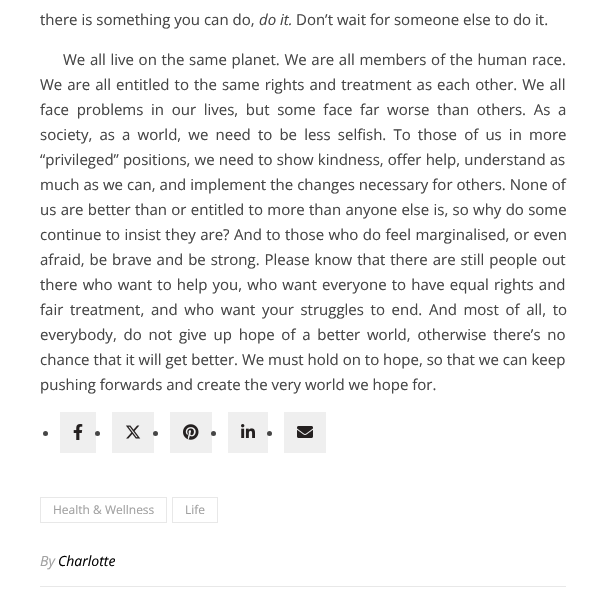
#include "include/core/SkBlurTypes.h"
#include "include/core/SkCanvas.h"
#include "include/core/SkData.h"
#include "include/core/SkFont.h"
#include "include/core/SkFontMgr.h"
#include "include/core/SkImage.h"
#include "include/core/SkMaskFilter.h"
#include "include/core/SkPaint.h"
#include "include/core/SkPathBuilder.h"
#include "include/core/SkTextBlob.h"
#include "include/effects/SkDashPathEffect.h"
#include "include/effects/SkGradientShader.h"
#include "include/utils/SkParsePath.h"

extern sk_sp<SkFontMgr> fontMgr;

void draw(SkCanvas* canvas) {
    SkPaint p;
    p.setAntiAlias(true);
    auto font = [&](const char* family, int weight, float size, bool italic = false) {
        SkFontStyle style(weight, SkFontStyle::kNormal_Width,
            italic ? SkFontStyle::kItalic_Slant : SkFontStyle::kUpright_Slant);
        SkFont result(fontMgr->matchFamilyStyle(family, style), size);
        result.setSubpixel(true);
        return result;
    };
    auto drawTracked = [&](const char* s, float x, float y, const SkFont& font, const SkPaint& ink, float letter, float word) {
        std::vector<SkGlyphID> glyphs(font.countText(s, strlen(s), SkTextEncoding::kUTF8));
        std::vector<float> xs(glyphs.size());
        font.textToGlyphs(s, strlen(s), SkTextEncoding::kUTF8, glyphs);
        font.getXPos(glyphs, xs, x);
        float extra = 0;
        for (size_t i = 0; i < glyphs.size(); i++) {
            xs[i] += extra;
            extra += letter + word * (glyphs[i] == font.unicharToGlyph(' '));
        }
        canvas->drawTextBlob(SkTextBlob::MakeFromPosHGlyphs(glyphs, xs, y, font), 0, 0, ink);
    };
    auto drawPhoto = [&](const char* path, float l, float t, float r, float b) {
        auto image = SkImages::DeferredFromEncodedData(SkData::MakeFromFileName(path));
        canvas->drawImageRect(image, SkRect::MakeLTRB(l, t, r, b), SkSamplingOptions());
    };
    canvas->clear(0xFFFFFFFF);
    auto font1 = font("Open Sans", 400, 15);
    p.setColor(0xFF464646);
    canvas->drawString("there is something you can do,", 40, 25, font1, p);
    auto font2 = font("Open Sans", 400, 15, true);
    canvas->drawString("do it.", 259, 25, font2, p);
    canvas->drawString("Don’t wait for someone else to do it.", 296, 25, font1, p);
    drawTracked("We all live on the same planet. We are all members of the human race.", 63, 65, font1, p, 0, 0.75f);
    drawTracked("We are all entitled to the same rights and treatment as each other. We all", 40, 90, font1, p, 0, 1.1f);
    drawTracked("face problems in our lives, but some face far worse than others. As a", 40, 115, font1, p, 0, 3.75f);
    drawTracked("society, as a world, we need to be less selfish. To those of us in more", 40, 140, font1, p, 0, 3.25f);
    drawTracked("“privileged” positions, we need to show kindness, offer help, understand as", 40, 165, font1, p, 0, 0.25f);
    drawTracked("much as we can, and implement the changes necessary for others. None of", 40, 190, font1, p, 0, 0.1f);
    drawTracked("us are better than or entitled to more than anyone else is, so why do some", 40, 215, font1, p, 0, 0.4f);
    drawTracked("continue to insist they are? And to those who do feel marginalised, or even", 40, 240, font1, p, 0, 0.5f);
    drawTracked("afraid, be brave and be strong. Please know that there are still people out", 40, 265, font1, p, 0, 1);
    drawTracked("there who want to help you, who want everyone to have equal rights and", 40, 290, font1, p, 0, 1.25f);
    drawTracked("fair treatment, and who want your struggles to end. And most of all, to", 40, 315, font1, p, 0, 2.75f);
    drawTracked("everybody, do not give up hope of a better world, otherwise there’s no", 40, 340, font1, p, 0, 2.9f);
    canvas->drawString("chance that it will get better. We must hold on to hope, so that we can keep", 40, 365, font1, p);
    canvas->drawString("pushing forwards and create the very world we hope for.", 40, 390, font1, p);
    canvas->drawCircle(45.5f, 433.5f, 2.5f, p);
    p.setColor(0xFFEFEFEF);
    canvas->drawRect(SkRect::MakeLTRB(60, 412, 96, 453), p);
    drawPhoto("media/1.png", 73, 424, 83, 440);
    p.setColor(0xFF464646);
    canvas->drawCircle(97.5f, 433.5f, 2.5f, p);
    p.setColor(0xFFEFEFEF);
    canvas->drawRect(SkRect::MakeLTRB(112, 412, 154, 453), p);
    drawPhoto("media/2.png", 126, 425, 141, 439);
    p.setColor(0xFF464646);
    canvas->drawCircle(155.5f, 433.5f, 2.5f, p);
    p.setColor(0xFFEFEFEF);
    canvas->drawRect(SkRect::MakeLTRB(170, 412, 212, 453), p);
    drawPhoto("media/3.png", 183, 424, 199, 440);
    p.setColor(0xFF464646);
    canvas->drawCircle(213.5f, 433.5f, 2.5f, p);
    p.setColor(0xFFEFEFEF);
    canvas->drawRect(SkRect::MakeLTRB(228, 412, 268, 453), p);
    drawPhoto("media/4.png", 241, 424, 255, 438);
    p.setColor(0xFF464646);
    canvas->drawCircle(269.5f, 433.5f, 2.5f, p);
    p.setColor(0xFFEFEFEF);
    canvas->drawRect(SkRect::MakeLTRB(284, 412, 326, 453), p);
    drawPhoto("media/5.png", 297, 426, 313, 438);
    p.setColor(0xFFE8E8E8);
    canvas->drawRect(SkRect::MakeLTRB(40, 586, 566, 587), p);
    p.setStyle(SkPaint::kStroke_Style);
    p.setStrokeWidth(1);
    canvas->drawRect(SkRect::MakeLTRB(40.5f, 497.5f, 166.5f, 522.5f), p);
    auto font3 = font("Open Sans", 400, 12);
    p.setStyle(SkPaint::kFill_Style);
    p.setColor(0xFFA1A1A1);
    canvas->drawString("Health & Wellness", 53, 514, font3, p);
    p.setStyle(SkPaint::kStroke_Style);
    p.setColor(0xFFE8E8E8);
    canvas->drawRect(SkRect::MakeLTRB(172.5f, 497.5f, 217.5f, 522.5f), p);
    p.setStyle(SkPaint::kFill_Style);
    p.setColor(0xFFA1A1A1);
    canvas->drawString("Life", 185, 514, font3, p);
    auto font4 = font("Open Sans", 400, 14, true);
    canvas->drawString("By", 40, 566, font4, p);
    p.setColor(0xFF030303);
    canvas->drawString("Charlotte", 58, 566, font4, p);
}
